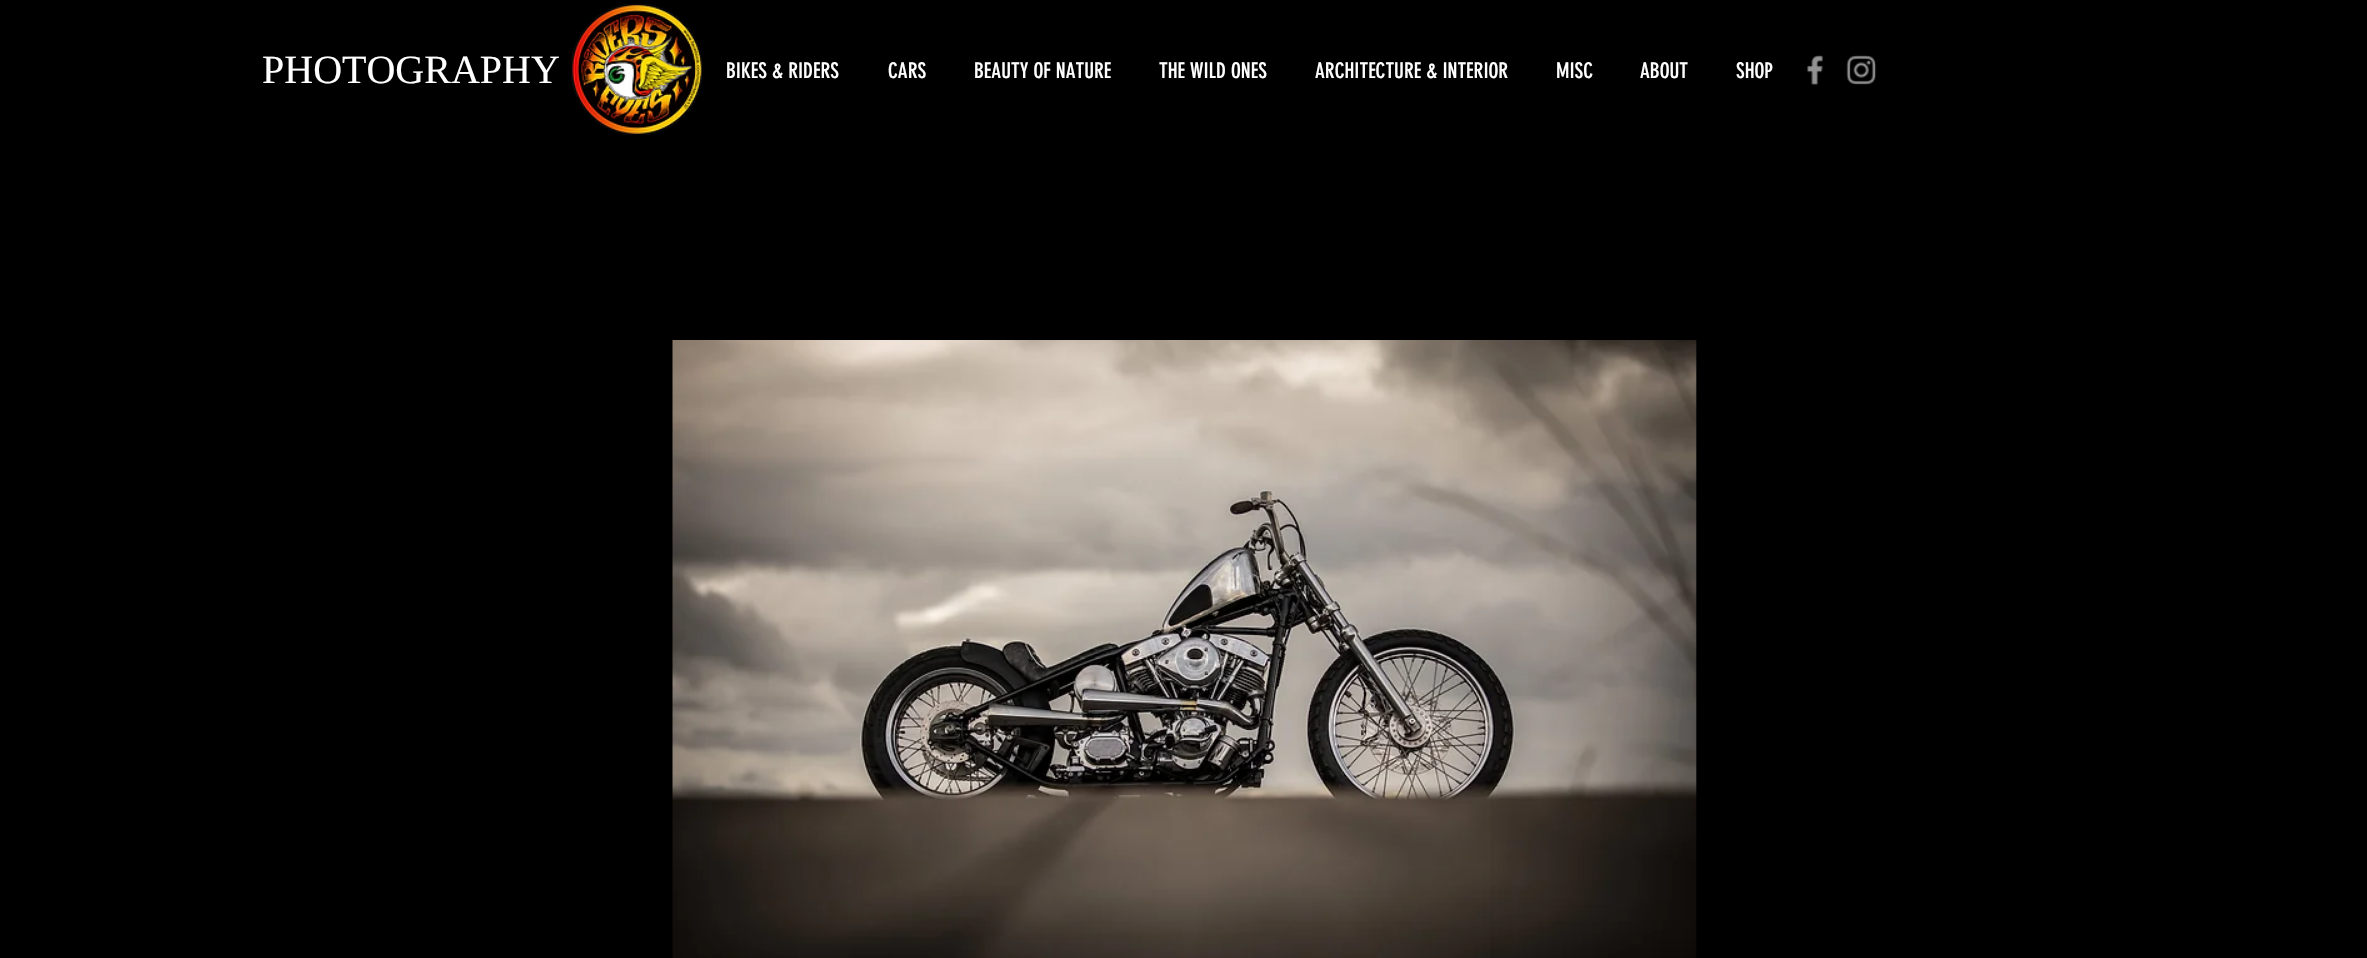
#include "include/core/SkBlurTypes.h"
#include "include/core/SkCanvas.h"
#include "include/core/SkData.h"
#include "include/core/SkFont.h"
#include "include/core/SkFontMgr.h"
#include "include/core/SkImage.h"
#include "include/core/SkMaskFilter.h"
#include "include/core/SkPaint.h"
#include "include/core/SkPathBuilder.h"
#include "include/core/SkTextBlob.h"
#include "include/effects/SkDashPathEffect.h"
#include "include/effects/SkGradientShader.h"
#include "include/utils/SkParsePath.h"

extern sk_sp<SkFontMgr> fontMgr;

void draw(SkCanvas* canvas) {
    SkPaint p;
    p.setAntiAlias(true);
    auto font = [&](const char* family, int weight, float size, bool italic = false) {
        SkFontStyle style(weight, SkFontStyle::kNormal_Width,
            italic ? SkFontStyle::kItalic_Slant : SkFontStyle::kUpright_Slant);
        SkFont result(fontMgr->matchFamilyStyle(family, style), size);
        result.setSubpixel(true);
        return result;
    };
    auto drawPhoto = [&](const char* path, float l, float t, float r, float b) {
        auto image = SkImages::DeferredFromEncodedData(SkData::MakeFromFileName(path));
        canvas->drawImageRect(image, SkRect::MakeLTRB(l, t, r, b), SkSamplingOptions());
    };
    canvas->clear(0xFF000000);
    auto font1 = font("Liberation Serif", 400, 40);
    p.setColor(0xFFFFFFFF);
    canvas->drawString("PHOTOGRAPHY", 262, 83, font1, p);
    drawPhoto("media/1.png", 571, 4, 702, 135);
    auto font2 = font("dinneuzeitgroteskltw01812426", 400, 21.25f);
    {
        const struct { const char* s; float x, y; } items[] = {
            {"BIKES & RIDERS", 726, 78},
            {"CARS", 888, 78},
            {"BEAUTY OF NATURE", 974, 78},
            {"THE WILD ONES", 1159, 78},
            {"ARCHITECTURE & INTERIOR", 1315, 78},
            {"MISC", 1556, 78},
            {"ABOUT", 1640, 78},
            {"SHOP", 1736, 78},
        };
        for (auto [s, x, y] : items) {
            canvas->drawString(s, x, y, font2, p);
        }
    }
    drawPhoto("media/2.png", 1807, 55, 1823, 86);
    drawPhoto("media/3.png", 1846, 55, 1877, 85);
    drawPhoto("media/4.png", 672, 340, 1697, 958);
}
